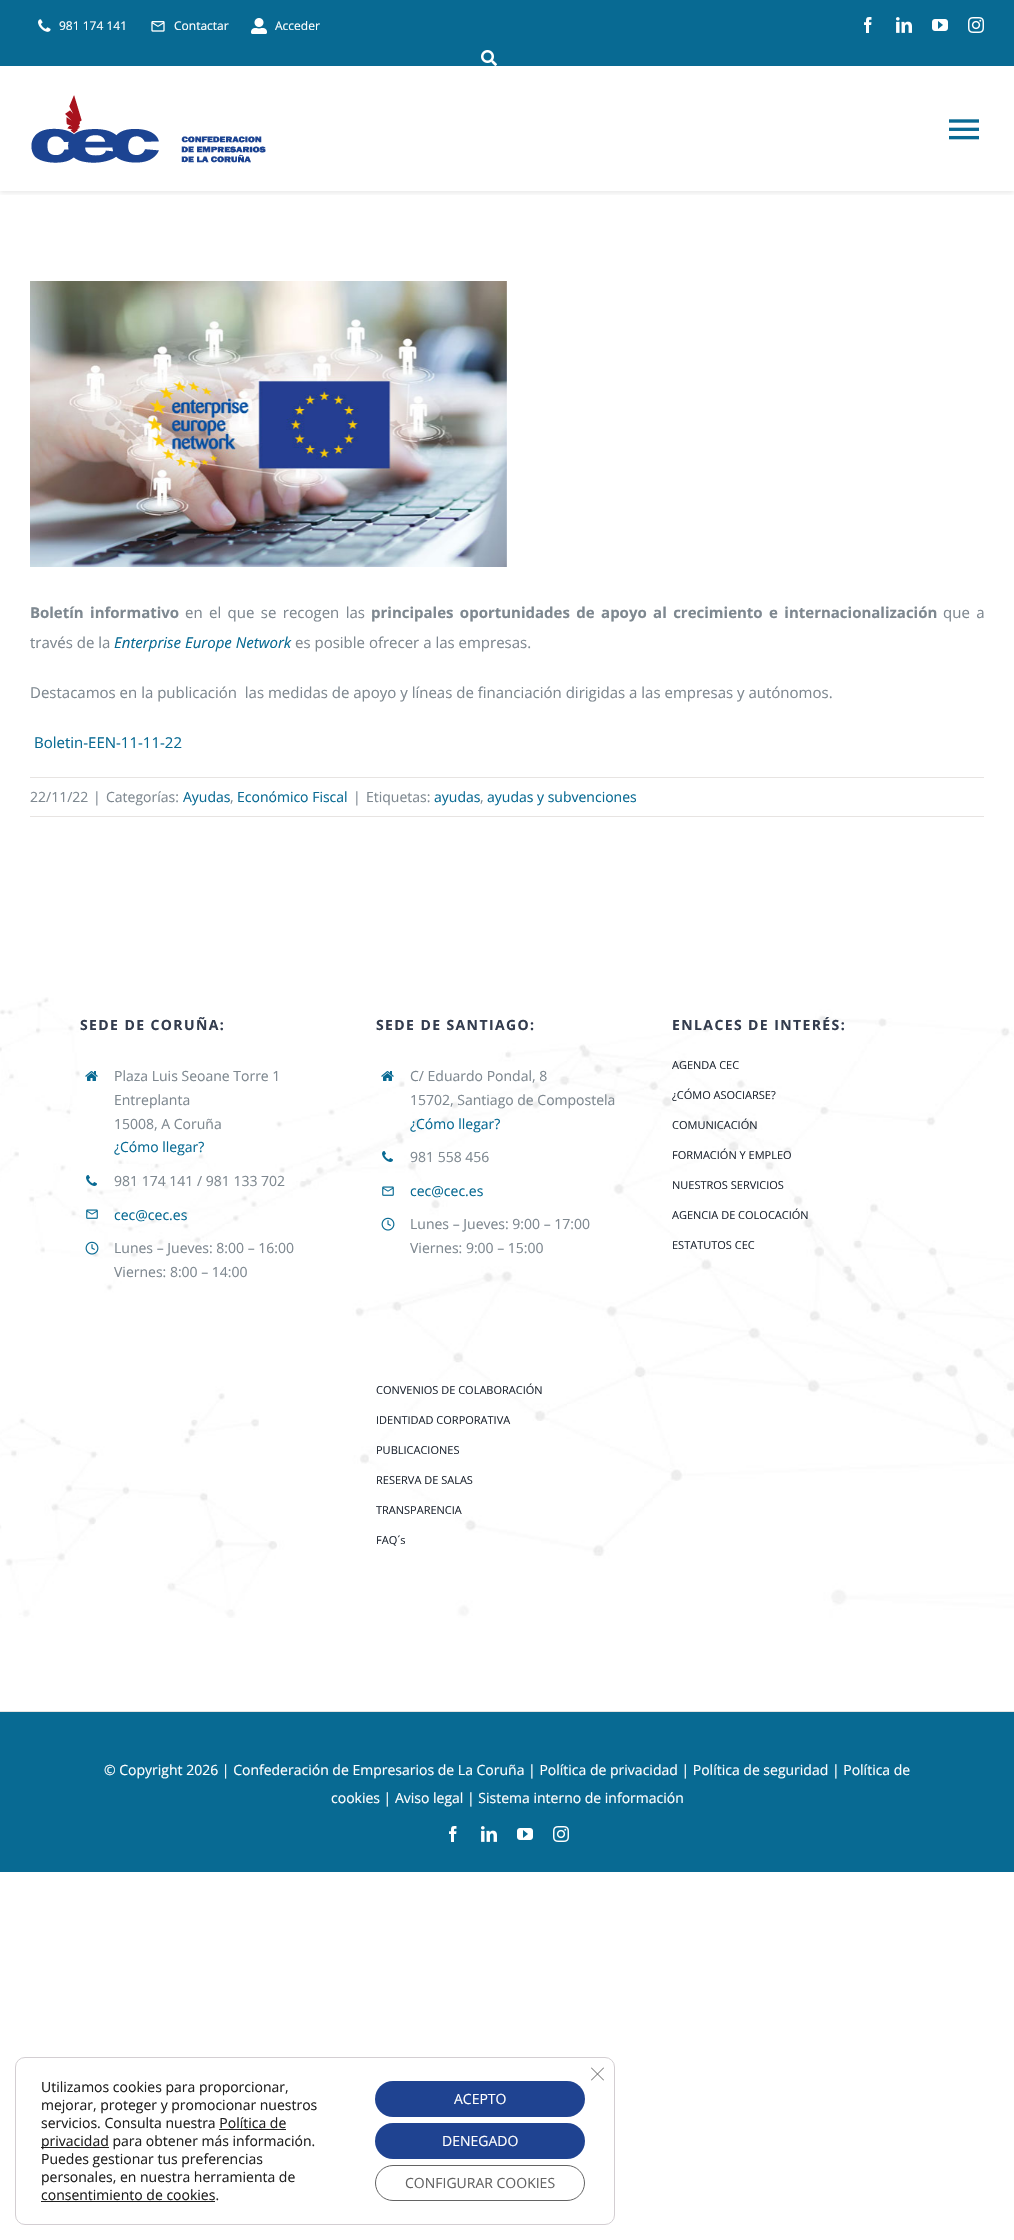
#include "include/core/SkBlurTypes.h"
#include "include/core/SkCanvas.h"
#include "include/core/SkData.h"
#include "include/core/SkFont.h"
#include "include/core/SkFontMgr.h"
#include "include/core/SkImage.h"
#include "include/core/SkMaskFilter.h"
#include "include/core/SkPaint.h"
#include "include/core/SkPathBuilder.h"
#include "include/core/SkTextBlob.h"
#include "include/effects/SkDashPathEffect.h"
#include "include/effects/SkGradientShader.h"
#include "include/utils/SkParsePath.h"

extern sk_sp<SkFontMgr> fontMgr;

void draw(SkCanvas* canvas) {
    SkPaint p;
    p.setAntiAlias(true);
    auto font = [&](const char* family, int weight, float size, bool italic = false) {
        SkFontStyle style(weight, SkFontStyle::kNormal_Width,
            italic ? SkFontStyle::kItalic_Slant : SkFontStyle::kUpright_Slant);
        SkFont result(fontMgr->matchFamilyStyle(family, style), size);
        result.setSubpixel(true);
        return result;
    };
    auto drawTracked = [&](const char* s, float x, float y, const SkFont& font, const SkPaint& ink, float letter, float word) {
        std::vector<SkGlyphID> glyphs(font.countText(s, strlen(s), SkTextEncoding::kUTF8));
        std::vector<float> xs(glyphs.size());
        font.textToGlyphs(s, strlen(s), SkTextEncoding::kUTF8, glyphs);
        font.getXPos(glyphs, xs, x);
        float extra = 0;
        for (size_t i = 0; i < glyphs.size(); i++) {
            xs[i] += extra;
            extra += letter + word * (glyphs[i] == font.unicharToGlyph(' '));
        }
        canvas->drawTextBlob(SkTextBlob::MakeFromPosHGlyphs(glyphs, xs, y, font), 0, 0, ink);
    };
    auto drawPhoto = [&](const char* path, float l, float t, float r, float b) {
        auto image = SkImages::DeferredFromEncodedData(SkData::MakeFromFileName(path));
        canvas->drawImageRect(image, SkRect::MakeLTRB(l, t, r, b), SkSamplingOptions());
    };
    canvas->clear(0xFFFFFFFF);
    p.setColor(0xFF086A93);
    canvas->drawRect(SkRect::MakeLTRB(0, 0, 1014, 66), p);
    drawPhoto("media/1.png", 38, 19, 51, 32);
    auto font1 = font("Open Sans", 400, 12);
    p.setColor(0xFFFFFFFF);
    canvas->drawString("981 174 141", 59, 30, font1, p);
    drawPhoto("media/2.png", 151, 21, 165, 32);
    canvas->drawString("Contactar", 174, 30, font1, p);
    drawPhoto("media/3.png", 251, 18, 267, 34);
    canvas->drawString("Acceder", 275, 30, font1, p);
    drawPhoto("media/4.png", 864, 17, 872, 33);
    drawPhoto("media/5.png", 896, 17, 912, 33);
    drawPhoto("media/6.png", 932, 19, 948, 31);
    drawPhoto("media/7.png", 968, 17, 984, 33);
    drawPhoto("media/8.png", 481, 50, 497, 66);
    canvas->save();
    canvas->clipRect(SkRect::MakeLTRB(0, 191, 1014, 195));
    p.setColor(0x1A212121);
    p.setMaskFilter(SkMaskFilter::MakeBlur(kNormal_SkBlurStyle, 2.5f));
    canvas->drawRect(SkRect::MakeLTRB(0, 68, 1014, 193), p);
    p.setMaskFilter(nullptr);
    canvas->restore();
    drawPhoto("media/9.png", 31, 95, 266, 163);
    drawPhoto("media/10.png", 949, 119, 979, 140);
    drawPhoto("media/11.png", 30, 281, 507, 567);
    auto font2 = font("Open Sans", 700, 15);
    p.setColor(0xFF7E8890);
    canvas->drawString("B", 30, 618, font2, p);
    drawTracked("oletín informativo", 40, 618, font2, p, 0, 2.5f);
    auto font3 = font("Open Sans", 400, 15);
    drawTracked("en el que se recogen las", 185, 618, font3, p, 0, 2.5f);
    drawTracked("principales oportunidades de apoyo al crecimiento e internacionalización", 371, 618, font2, p, 0, 2.5f);
    drawTracked("que a", 943, 618, font3, p, 0, 2.5f);
    canvas->drawString("través de la", 30, 648, font3, p);
    auto font4 = font("Open Sans", 400, 15, true);
    p.setColor(0xFF086A93);
    canvas->drawString("Enterprise Europe Network", 114, 648, font4, p);
    p.setColor(0xFF7E8890);
    canvas->drawString("es posible ofrecer a las empresas.", 295, 648, font3, p);
    canvas->drawString("Destacamos en la publicación  las medidas de apoyo y líneas de financiación dirigidas a las empresas y autónomos.", 30, 698, font3, p);
    p.setColor(0xFF086A93);
    canvas->drawString("Boletin-EEN-11-11-22", 34, 748, font3, p);
    p.setColor(0xFFE7E4E2);
    canvas->drawRect(SkRect::MakeLTRB(30, 777, 984, 778), p);
    canvas->drawRect(SkRect::MakeLTRB(30, 816, 984, 817), p);
    auto font5 = font("Open Sans", 400, 14);
    p.setColor(0xFF7E8890);
    {
        const struct { const char* s; float x, y; } items[] = {
            {"22/11/22", 30, 802},
            {"|", 93, 802},
            {"Categorías:", 106, 802},
        };
        for (auto [s, x, y] : items) {
            canvas->drawString(s, x, y, font5, p);
        }
    }
    p.setColor(0xFF086A93);
    canvas->drawString("Ayudas", 183, 802, font5, p);
    p.setColor(0xFF7E8890);
    canvas->drawString(",", 230, 802, font5, p);
    p.setColor(0xFF086A93);
    canvas->drawString("Económico Fiscal", 237, 802, font5, p);
    p.setColor(0xFF7E8890);
    canvas->drawString("|", 353, 802, font5, p);
    canvas->drawString("Etiquetas:", 366, 802, font5, p);
    p.setColor(0xFF086A93);
    canvas->drawString("ayudas", 434, 802, font5, p);
    p.setColor(0xFF7E8890);
    canvas->drawString(",", 480, 802, font5, p);
    p.setColor(0xFF086A93);
    canvas->drawString("ayudas y subvenciones", 487, 802, font5, p);
    drawPhoto("media/12.png", 0, 997, 1014, 1618);
    auto font6 = font("Open Sans", 700, 14);
    p.setColor(0xFF333C4E);
    drawTracked("SEDE DE CORUÑA:", 80, 1030, font6, p, 1.4f, 0);
    drawPhoto("media/13.png", 85, 1071, 98, 1081);
    p.setColor(0xFF7E8890);
    {
        const struct { const char* s; float x, y; } items[] = {
            {"Plaza Luis Seoane Torre 1", 114, 1081},
            {"Entreplanta", 114, 1105},
            {"15008, A Coruña", 114, 1129},
        };
        for (auto [s, x, y] : items) {
            canvas->drawString(s, x, y, font5, p);
        }
    }
    p.setColor(0xFF086A93);
    canvas->drawString("¿Cómo llegar?", 114, 1152, font5, p);
    drawPhoto("media/14.png", 86, 1175, 97, 1186);
    p.setColor(0xFF7E8890);
    canvas->drawString("981 174 141 / 981 133 702", 114, 1186, font5, p);
    drawPhoto("media/15.png", 86, 1209, 98, 1219);
    p.setColor(0xFF086A93);
    canvas->drawString("cec@cec.es", 114, 1220, font5, p);
    drawPhoto("media/16.png", 85, 1241, 99, 1255);
    p.setColor(0xFF7E8890);
    canvas->drawString("Lunes – Jueves: 8:00 – 16:00", 114, 1253, font5, p);
    canvas->drawString("Viernes: 8:00 – 14:00", 114, 1277, font5, p);
    p.setColor(0xFF333C4E);
    drawTracked("SEDE DE SANTIAGO:", 376, 1030, font6, p, 1.4f, 0);
    drawPhoto("media/17.png", 381, 1071, 394, 1081);
    p.setColor(0xFF7E8890);
    canvas->drawString("C/ Eduardo Pondal, 8", 410, 1081, font5, p);
    canvas->drawString("15702, Santiago de Compostela", 410, 1105, font5, p);
    p.setColor(0xFF086A93);
    canvas->drawString("¿Cómo llegar?", 410, 1129, font5, p);
    drawPhoto("media/18.png", 382, 1151, 393, 1162);
    p.setColor(0xFF7E8890);
    canvas->drawString("981 558 456", 410, 1162, font5, p);
    drawPhoto("media/19.png", 382, 1186, 394, 1196);
    p.setColor(0xFF086A93);
    canvas->drawString("cec@cec.es", 410, 1196, font5, p);
    drawPhoto("media/20.png", 381, 1217, 395, 1231);
    p.setColor(0xFF7E8890);
    canvas->drawString("Lunes – Jueves: 9:00 – 17:00", 410, 1229, font5, p);
    canvas->drawString("Viernes: 9:00 – 15:00", 410, 1253, font5, p);
    p.setColor(0xFF333C4E);
    drawTracked("ENLACES DE INTERÉS:", 672, 1030, font6, p, 1.4f, 0);
    auto font7 = font("Open Sans", 400, 11);
    p.setColor(0xFF212934);
    {
        const struct { const char* s; float x, y; } items[] = {
            {"AGENDA CEC", 672, 1069},
            {"¿CÓMO ASOCIARSE?", 672, 1099},
            {"COMUNICACIÓN", 672, 1129},
            {"FORMACIÓN Y EMPLEO", 672, 1159},
            {"NUESTROS SERVICIOS", 672, 1189},
            {"AGENCIA DE COLOCACIÓN", 672, 1219},
            {"ESTATUTOS CEC", 672, 1249},
            {"CONVENIOS DE COLABORACIÓN", 376, 1394},
            {"IDENTIDAD CORPORATIVA", 376, 1424},
            {"PUBLICACIONES", 376, 1454},
            {"RESERVA DE SALAS", 376, 1484},
            {"TRANSPARENCIA", 376, 1514},
            {"FAQ´s", 376, 1544},
        };
        for (auto [s, x, y] : items) {
            canvas->drawString(s, x, y, font7, p);
        }
    }
    p.setColor(0xFF086A93);
    canvas->drawRect(SkRect::MakeLTRB(0, 1712, 1014, 1872), p);
    p.setColor(0xFFE7E4E2);
    canvas->drawRect(SkRect::MakeLTRB(0, 1711, 1014, 1712), p);
    p.setColor(0xFFFFFFFF);
    canvas->drawString("© Copyright 2026 | Confederación de Empresarios de La Coruña | Política de privacidad | Política de seguridad | Política de", 104, 1775, font5, p);
    canvas->drawString("cookies | Aviso legal | Sistema interno de información", 331, 1803, font5, p);
    drawPhoto("media/4.png", 449, 1826, 457, 1842);
    drawPhoto("media/5.png", 481, 1826, 497, 1842);
    drawPhoto("media/6.png", 517, 1828, 533, 1840);
    drawPhoto("media/7.png", 553, 1826, 569, 1842);
    p.setStyle(SkPaint::kStroke_Style);
    p.setStrokeWidth(1);
    p.setColor(0xFFD3CED2);
    canvas->drawRoundRect(SkRect::MakeLTRB(15.5f, 2057.5f, 614.5f, 2224.5f), 9.5f, 9.5f, p);
    p.setStyle(SkPaint::kFill_Style);
    p.setColor(0xFF202020);
    {
        const struct { const char* s; float x, y; } items[] = {
            {"Utilizamos cookies para proporcionar,", 41, 2092},
            {"mejorar, proteger y promocionar nuestros", 41, 2110},
            {"servicios. Consulta nuestra Política de", 41, 2128},
        };
        for (auto [s, x, y] : items) {
            canvas->drawString(s, x, y, font5, p);
        }
    }
    canvas->drawRect(SkRect::MakeLTRB(41, 2147, 109, 2148), p);
    canvas->drawString("privacidad para obtener más información.", 41, 2146, font5, p);
    canvas->drawRect(SkRect::MakeLTRB(219, 2129, 286, 2130), p);
    {
        const struct { const char* s; float x, y; } items[] = {
            {"Puedes gestionar tus preferencias", 41, 2164},
            {"personales, en nuestra herramienta de", 41, 2182},
            {"consentimiento de cookies.", 41, 2200},
        };
        for (auto [s, x, y] : items) {
            canvas->drawString(s, x, y, font5, p);
        }
    }
    canvas->drawRect(SkRect::MakeLTRB(41, 2201, 215, 2202), p);
    p.setColor(0xFF626262);
    canvas->drawPath(SkPathBuilder().moveTo(603.5f, 2067.5f).lineTo(604, 2068).lineTo(591.5f, 2080.5f).lineTo(591, 2080).close().detach(), p);
    canvas->drawPath(SkPathBuilder().moveTo(591, 2068).lineTo(591.5f, 2067.5f).lineTo(604, 2080).lineTo(603.5f, 2080.5f).close().detach(), p);
    p.setColor(0xFF1F4391);
    canvas->drawRoundRect(SkRect::MakeLTRB(375, 2081, 585, 2117), 18, 18, p);
    p.setColor(0xFFFFFFFF);
    canvas->drawString("ACEPTO", 454, 2104, font5, p);
    p.setColor(0xFF1F4391);
    canvas->drawRoundRect(SkRect::MakeLTRB(375, 2123, 585, 2159), 18, 18, p);
    p.setColor(0xFFFFFFFF);
    canvas->drawString("DENEGADO", 442, 2146, font5, p);
    p.setStyle(SkPaint::kStroke_Style);
    p.setColor(0xFF636363);
    canvas->drawRoundRect(SkRect::MakeLTRB(375.5f, 2165.5f, 584.5f, 2200.5f), 17.5f, 17.5f, p);
    p.setStyle(SkPaint::kFill_Style);
    canvas->drawString("CONFIGURAR COOKIES", 405, 2188, font5, p);
}
